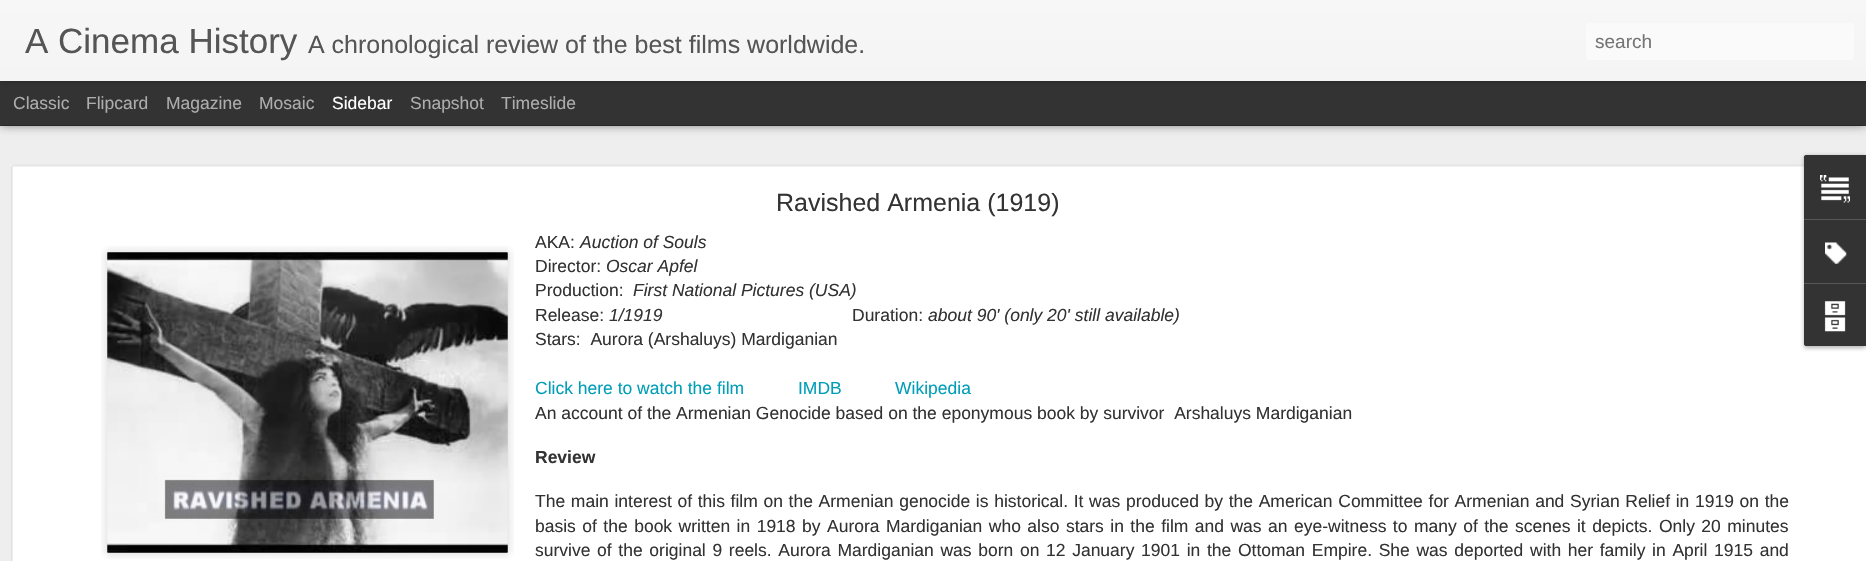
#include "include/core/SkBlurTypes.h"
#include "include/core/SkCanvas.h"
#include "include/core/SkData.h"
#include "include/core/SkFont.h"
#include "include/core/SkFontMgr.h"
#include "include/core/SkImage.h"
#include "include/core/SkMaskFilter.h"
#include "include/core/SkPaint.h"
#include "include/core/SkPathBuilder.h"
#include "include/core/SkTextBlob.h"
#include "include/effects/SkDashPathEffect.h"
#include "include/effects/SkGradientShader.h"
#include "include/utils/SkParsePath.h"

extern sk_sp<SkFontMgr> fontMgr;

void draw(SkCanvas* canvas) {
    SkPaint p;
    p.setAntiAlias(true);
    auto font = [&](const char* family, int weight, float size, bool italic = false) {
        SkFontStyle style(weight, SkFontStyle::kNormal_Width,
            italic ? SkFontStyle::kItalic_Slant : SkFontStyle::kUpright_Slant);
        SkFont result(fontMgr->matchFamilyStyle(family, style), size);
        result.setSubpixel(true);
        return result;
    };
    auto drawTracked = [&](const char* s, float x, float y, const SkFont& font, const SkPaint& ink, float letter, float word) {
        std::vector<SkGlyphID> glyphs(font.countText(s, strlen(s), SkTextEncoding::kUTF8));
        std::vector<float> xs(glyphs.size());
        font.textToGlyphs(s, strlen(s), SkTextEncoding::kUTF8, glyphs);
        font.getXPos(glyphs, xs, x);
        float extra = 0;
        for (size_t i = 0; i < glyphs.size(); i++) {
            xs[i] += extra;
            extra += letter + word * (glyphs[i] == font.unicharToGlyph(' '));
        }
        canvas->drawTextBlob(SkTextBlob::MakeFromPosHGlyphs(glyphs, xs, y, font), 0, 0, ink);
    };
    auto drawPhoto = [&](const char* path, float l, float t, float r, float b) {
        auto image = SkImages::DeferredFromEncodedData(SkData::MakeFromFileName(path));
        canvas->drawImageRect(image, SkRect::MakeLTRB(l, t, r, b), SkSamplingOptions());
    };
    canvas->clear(0xFF333333);
    p.setColor(0xFFEEEEEE);
    canvas->drawRect(SkRect::MakeLTRB(0, 126, 1866, 561), p);
    p.setColor(0x80000000);
    p.setMaskFilter(SkMaskFilter::MakeBlur(kNormal_SkBlurStyle, 5));
    canvas->drawRect(SkRect::MakeLTRB(0, 81, 1866, 125), p);
    p.setMaskFilter(nullptr);
    p.setColor(0xFF333333);
    canvas->drawRect(SkRect::MakeLTRB(0, 81, 1866, 125), p);
    p.setColor(0x4D000000);
    p.setMaskFilter(SkMaskFilter::MakeBlur(kNormal_SkBlurStyle, 3));
    canvas->drawRect(SkRect::MakeLTRB(0, 0, 1866, 81), p);
    p.setMaskFilter(nullptr);
    {
        const SkColor colors[] = {0xFFF7F7F7, 0xFFF4F4F4};
        const float stops[] = {0, 1};
        const SkPoint ends[] = {{0, 0}, {0, 81}};
        p.setShader(SkGradientShader::MakeLinear(ends, colors, stops, 2, SkTileMode::kClamp));
        p.setAlpha(255);
    }
    canvas->drawRect(SkRect::MakeLTRB(0, 0, 1866, 81), p);
    auto font1 = font("Liberation Sans", 400, 35);
    p.setShader(nullptr);
    p.setColor(0xFF555555);
    canvas->drawString("A Cinema History", 25, 53, font1, p);
    auto font2 = font("Liberation Sans", 400, 25);
    canvas->drawString("A chronological review of the best films worldwide.", 308, 53, font2, p);
    p.setColor(0xFFFAFAFA);
    canvas->drawRoundRect(SkRect::MakeLTRB(1586, 23, 1854, 60), 4, 4, p);
    auto font3 = font("Liberation Sans", 400, 19);
    p.setColor(0xFF757575);
    canvas->drawString("search", 1595, 48, font3, p);
    auto font4 = font("Liberation Sans", 400, 17.5f);
    p.setColor(0xFFADADAD);
    {
        const struct { const char* s; float x, y; } items[] = {
            {"Classic", 13, 109},
            {"Flipcard", 86, 109},
            {"Magazine", 166, 109},
            {"Mosaic", 259, 109},
        };
        for (auto [s, x, y] : items) {
            canvas->drawString(s, x, y, font4, p);
        }
    }
    p.setColor(0xFFFFFFFF);
    canvas->drawString("Sidebar", 332, 109, font4, p);
    p.setColor(0xFFADADAD);
    canvas->drawString("Snapshot", 410, 109, font4, p);
    canvas->drawString("Timeslide", 501, 109, font4, p);
    p.setColor(0xFFFFFFFF);
    canvas->drawRect(SkRect::MakeLTRB(10, 164, 1866, 561), p);
    drawPhoto("media/1.png", 10, 164, 1804, 561);
    p.setColor(0xFF333333);
    canvas->drawString("Ravished Armenia (1919)", 776, 211, font2, p);
    canvas->drawString("AKA:", 535, 248, font4, p);
    auto font5 = font("Liberation Sans", 400, 17.5f, true);
    canvas->drawString("Auction of Souls", 580, 248, font5, p);
    drawPhoto("media/2.png", 101, 246, 514, 559);
    drawPhoto("media/3.png", 107, 252, 508, 553);
    canvas->drawString("Director:", 535, 272, font4, p);
    canvas->drawString("Oscar Apfel", 606, 272, font5, p);
    canvas->drawString("Production:", 535, 296, font4, p);
    canvas->drawString("First National Pictures (USA)", 633, 296, font5, p);
    canvas->drawString("Release:", 535, 321, font4, p);
    canvas->drawString("1/1919", 609, 321, font5, p);
    canvas->drawString("Duration:", 852, 321, font4, p);
    canvas->drawString("about 90' (only 20' still available)", 928, 321, font5, p);
    canvas->drawString("Stars:  Aurora (Arshaluys) Mardiganian", 535, 345, font4, p);
    p.setColor(0xFF009EB8);
    {
        const struct { const char* s; float x, y; } items[] = {
            {"Click here to watch the film", 535, 394},
            {"IMDB", 798, 394},
            {"Wikipedia", 895, 394},
        };
        for (auto [s, x, y] : items) {
            canvas->drawString(s, x, y, font4, p);
        }
    }
    p.setColor(0xFF333333);
    canvas->drawString("An account of the Armenian Genocide based on the eponymous book by survivor  Arshaluys Mardiganian", 535, 419, font4, p);
    auto font6 = font("Liberation Sans", 700, 17.5f);
    canvas->drawString("Review", 535, 463, font6, p);
    drawTracked("The main interest of this film on the Armenian genocide is historical. It was produced by the American Committee for Armenian and Syrian Relief in 1919 on the", 535, 507, font4, p, 0, 0.8f);
    drawTracked("basis of the book written in 1918 by Aurora Mardiganian who also stars in the film and was an eye-witness to many of the scenes it depicts. Only 20 minutes", 535, 532, font4, p, 0, 1.6f);
    drawTracked("survive of the original 9 reels. Aurora Mardiganian was born on 12 January 1901 in the Ottoman Empire. She was deported with her family in April 1915 and", 535, 556, font4, p, 0, 1.8f);
    p.setColor(0x4D000000);
    p.setMaskFilter(SkMaskFilter::MakeBlur(kNormal_SkBlurStyle, 2));
    canvas->drawRoundRect(SkRect::MakeLTRB(1804, 156, 1866, 348), 2.5f, 2.5f, p);
    p.setMaskFilter(nullptr);
    p.setColor(0xFF333333);
    canvas->drawPath(SkPathBuilder().moveTo(1806.5f, 155).lineTo(1866, 155).lineTo(1866, 346).lineTo(1806.5f, 346).cubicTo(1805, 346, 1804, 345, 1804, 343.5f).lineTo(1804, 157.5f).cubicTo(1804, 156, 1805, 155, 1806.5f, 155).close().detach(), p);
    canvas->drawPath(SkPathBuilder().moveTo(1806.5f, 155).lineTo(1866, 155).lineTo(1866, 219).lineTo(1804, 219).lineTo(1804, 157.5f).cubicTo(1804, 156, 1805, 155, 1806.5f, 155).close().detach(), p);
    drawPhoto("media/4.png", 1820, 175, 1850, 203);
    p.setColor(0xFF585858);
    canvas->drawRect(SkRect::MakeLTRB(1804, 219, 1866, 220), p);
    drawPhoto("media/5.png", 1825, 242, 1847, 264);
    p.setColor(0xFF333333);
    canvas->drawPath(SkPathBuilder().moveTo(1804, 283).lineTo(1866, 283).lineTo(1866, 346).lineTo(1806.5f, 346).cubicTo(1805, 346, 1804, 345, 1804, 343.5f).close().detach(), p);
    p.setColor(0xFF585858);
    canvas->drawRect(SkRect::MakeLTRB(1804, 283, 1866, 284), p);
    drawPhoto("media/6.png", 1824, 301, 1846, 332);
}
